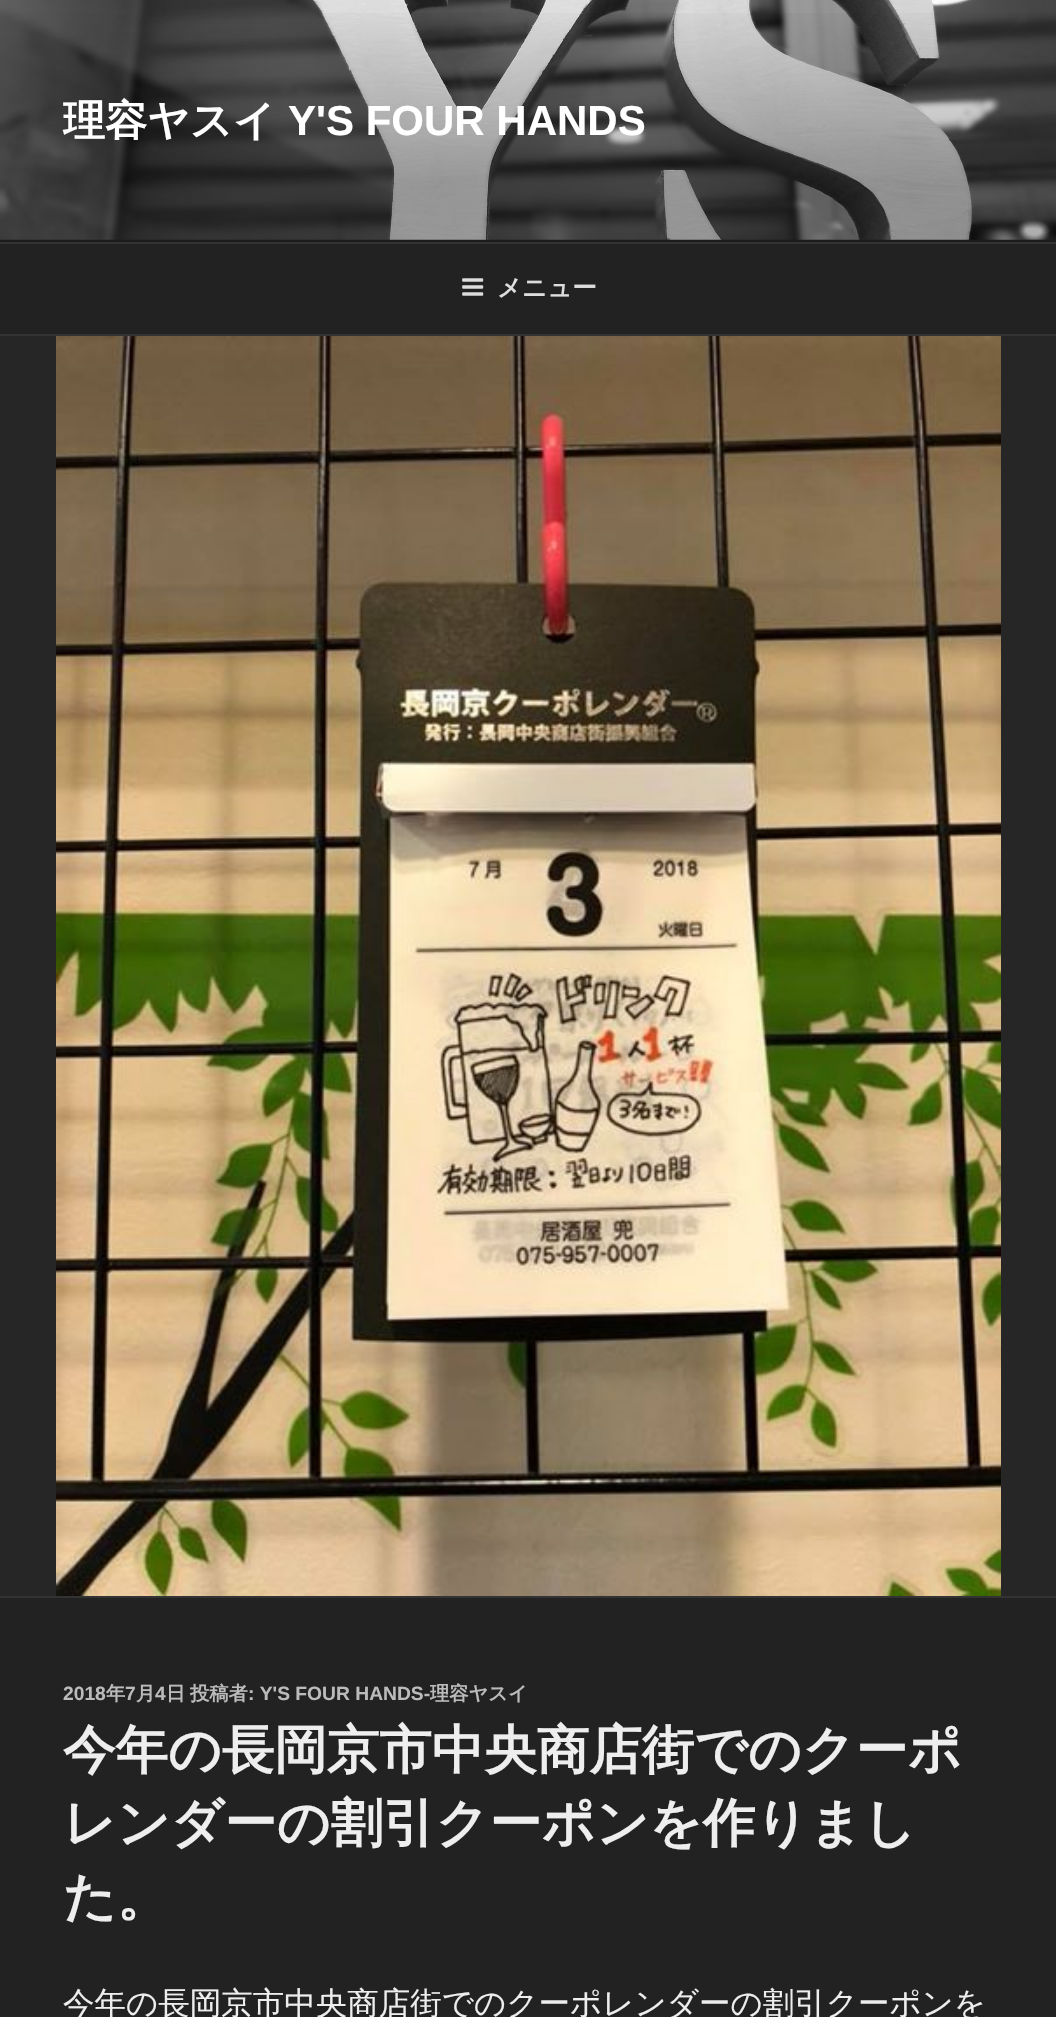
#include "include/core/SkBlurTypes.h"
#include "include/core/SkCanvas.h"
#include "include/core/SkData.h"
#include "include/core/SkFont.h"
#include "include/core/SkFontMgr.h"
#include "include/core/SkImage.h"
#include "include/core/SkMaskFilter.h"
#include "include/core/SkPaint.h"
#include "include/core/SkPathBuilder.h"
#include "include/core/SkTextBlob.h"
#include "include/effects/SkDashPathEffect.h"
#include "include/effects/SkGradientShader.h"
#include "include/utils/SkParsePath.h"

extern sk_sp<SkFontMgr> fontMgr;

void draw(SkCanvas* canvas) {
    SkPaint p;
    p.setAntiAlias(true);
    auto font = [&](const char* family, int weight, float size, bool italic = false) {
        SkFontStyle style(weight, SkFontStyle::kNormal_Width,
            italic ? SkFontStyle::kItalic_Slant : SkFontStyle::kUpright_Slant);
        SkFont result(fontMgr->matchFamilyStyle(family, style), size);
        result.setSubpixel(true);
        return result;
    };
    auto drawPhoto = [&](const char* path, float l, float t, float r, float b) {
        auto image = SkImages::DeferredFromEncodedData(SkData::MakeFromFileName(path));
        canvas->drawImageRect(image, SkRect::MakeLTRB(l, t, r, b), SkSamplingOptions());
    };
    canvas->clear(0xFF222222);
    p.setColor(0xFF262626);
    canvas->drawRect(SkRect::MakeLTRB(0, 239, 1056, 242), p);
    drawPhoto("media/1.png", 0, 0, 1056, 240);
    {
        const SkColor colors[] = {0x00000000, 0x4D000000, 0x4D000000};
        const float stops[] = {0, 0.75f, 1};
        const SkPoint ends[] = {{529, 0}, {529, 242}};
        p.setShader(SkGradientShader::MakeLinear(ends, colors, stops, 3, SkTileMode::kClamp));
        p.setAlpha(255);
    }
    canvas->drawRect(SkRect::MakeLTRB(0, 13, 1056, 242), p);
    auto font1 = font("WenQuanYi Zen Hei", 700, 42);
    p.setShader(nullptr);
    p.setColor(0xFFFFFFFF);
    canvas->drawString("理容ヤスイ", 63, 135, font1, p);
    auto font2 = font("Liberation Sans", 700, 42);
    canvas->drawString("Y'S FOUR HANDS", 288, 135, font2, p);
    p.setColor(0xFF333333);
    canvas->drawRect(SkRect::MakeLTRB(0, 242, 1056, 244), p);
    canvas->drawRect(SkRect::MakeLTRB(0, 334, 1056, 336), p);
    drawPhoto("media/2.png", 462, 278, 484, 296);
    auto font3 = font("WenQuanYi Zen Hei", 700, 24.5f);
    p.setColor(0xFFDDDDDD);
    canvas->drawString("メニュー", 497, 296, font3, p);
    p.setColor(0xFF262626);
    canvas->drawRect(SkRect::MakeLTRB(0, 336, 1056, 1596), p);
    p.setColor(0xFF333333);
    canvas->drawRect(SkRect::MakeLTRB(0, 1596, 1056, 1598), p);
    drawPhoto("media/3.png", 56, 336, 1001, 1596);
    auto font4 = font("Liberation Sans", 700, 19.25f);
    p.setColor(0xFFBBBBBB);
    canvas->drawString("2018", 63, 1700, font4, p);
    auto font5 = font("WenQuanYi Zen Hei", 700, 19.25f);
    canvas->drawString("年", 106, 1700, font5, p);
    canvas->drawString("7", 125, 1700, font4, p);
    canvas->drawString("月", 136, 1700, font5, p);
    canvas->drawString("4", 155, 1700, font4, p);
    canvas->drawString("日", 166, 1700, font5, p);
    canvas->drawString("投稿者", 190, 1700, font5, p);
    canvas->drawString(": Y'S FOUR HANDS-", 248, 1700, font4, p);
    canvas->drawString("理容ヤスイ", 430, 1700, font5, p);
    auto font6 = font("WenQuanYi Zen Hei", 700, 52.5f);
    p.setColor(0xFFEEEEEE);
    {
        const struct { const char* s; float x, y; } items[] = {
            {"今年の長岡京市中央商店街でのクーポ", 63, 1768},
            {"レンダーの割引クーポンを作りまし", 63, 1841},
            {"た。", 63, 1915},
        };
        for (auto [s, x, y] : items) {
            canvas->drawString(s, x, y, font6, p);
        }
    }
    auto font7 = font("WenQuanYi Zen Hei", 500, 31.5f);
    canvas->drawString("今年の長岡京市中央商店街でのクーポレンダーの割引クーポンを", 63, 2014, font7, p);
}
